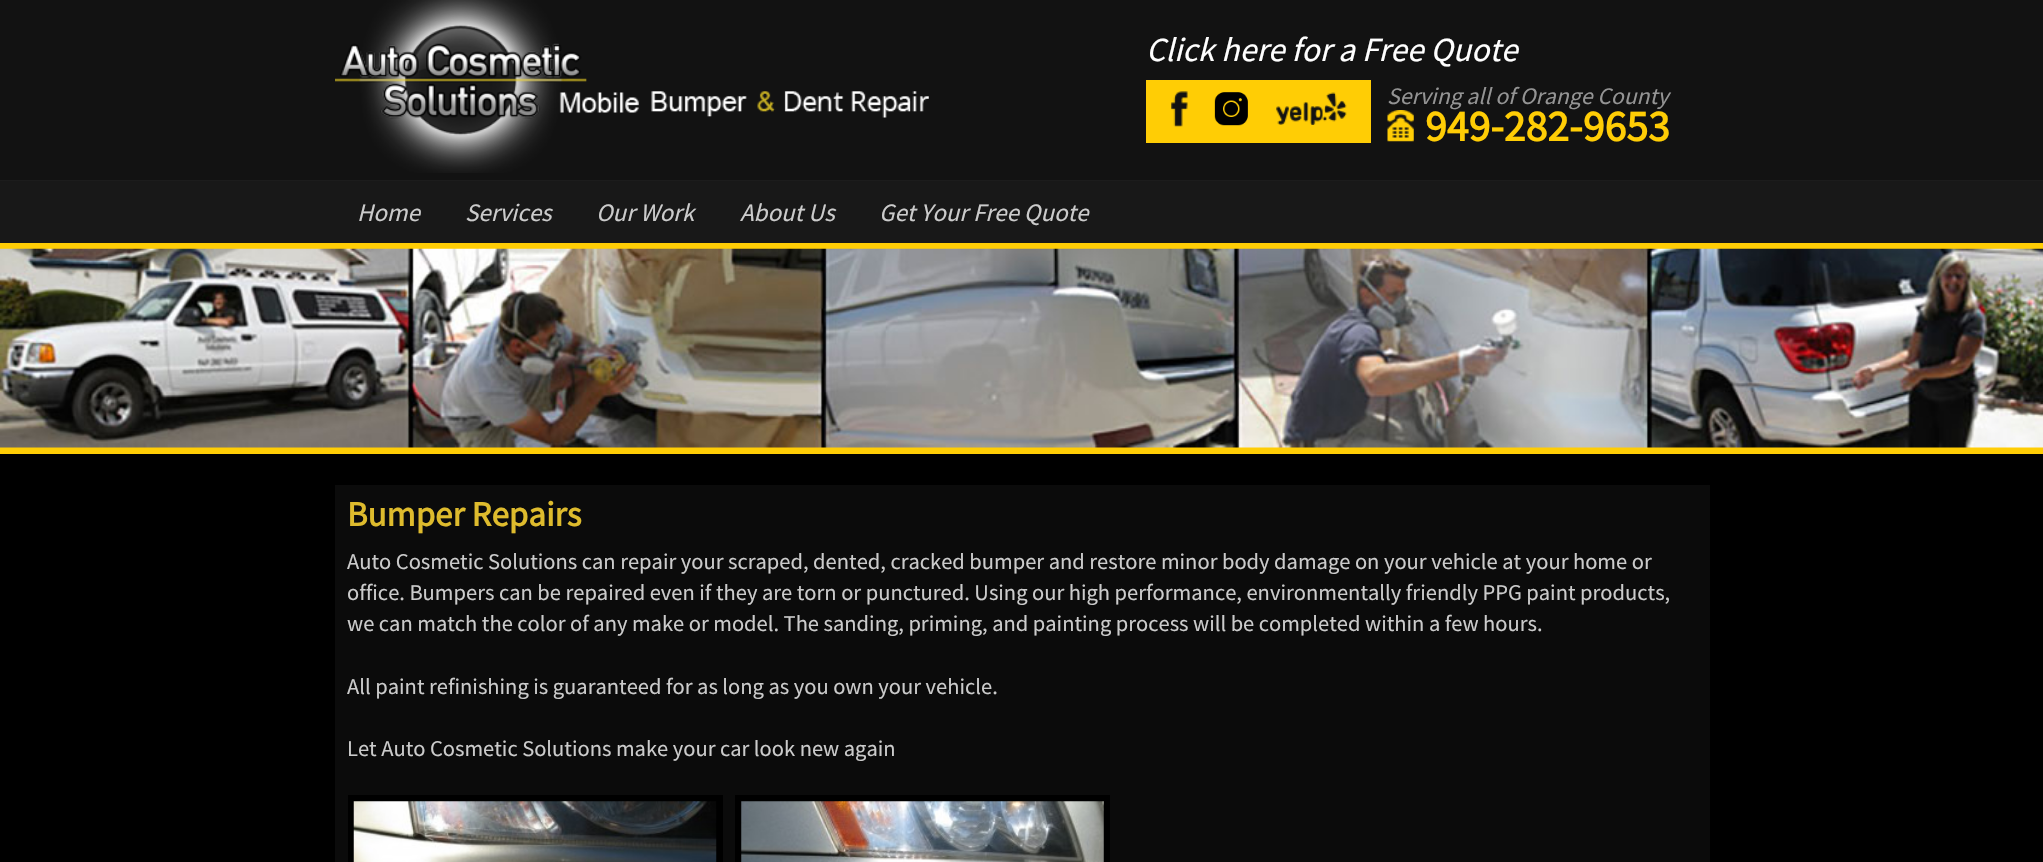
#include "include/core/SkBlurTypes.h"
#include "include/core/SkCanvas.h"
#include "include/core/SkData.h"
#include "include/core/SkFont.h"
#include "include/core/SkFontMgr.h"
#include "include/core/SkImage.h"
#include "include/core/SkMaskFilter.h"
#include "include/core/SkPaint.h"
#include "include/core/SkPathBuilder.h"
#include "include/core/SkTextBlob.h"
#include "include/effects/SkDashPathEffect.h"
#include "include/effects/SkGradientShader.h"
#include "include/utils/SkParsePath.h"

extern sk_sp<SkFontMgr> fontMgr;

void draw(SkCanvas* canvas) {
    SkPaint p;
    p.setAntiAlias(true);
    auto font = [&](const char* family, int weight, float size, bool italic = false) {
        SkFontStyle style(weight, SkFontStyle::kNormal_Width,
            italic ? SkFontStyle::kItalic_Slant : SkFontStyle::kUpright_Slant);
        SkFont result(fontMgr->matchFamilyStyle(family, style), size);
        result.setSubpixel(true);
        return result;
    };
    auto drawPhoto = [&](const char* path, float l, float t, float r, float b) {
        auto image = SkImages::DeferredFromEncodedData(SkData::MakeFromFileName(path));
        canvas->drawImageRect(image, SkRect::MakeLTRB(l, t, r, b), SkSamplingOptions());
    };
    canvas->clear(0xFF000000);
    p.setColor(0xFF121212);
    canvas->drawRect(SkRect::MakeLTRB(0, 0, 2043, 180), p);
    drawPhoto("media/1.png", 335, 0, 929, 173);
    auto font1 = font("Source Sans Pro", 400, 33.75f, true);
    p.setColor(0xFFFFFFFF);
    canvas->drawString("Click here for a Free Quote", 1146, 61, font1, p);
    p.setColor(0xFFFFCD05);
    canvas->drawRect(SkRect::MakeLTRB(1146, 80, 1371, 143), p);
    drawPhoto("media/2.png", 1171, 91, 1188, 127);
    drawPhoto("media/3.png", 1214, 92, 1248, 126);
    drawPhoto("media/4.png", 1276, 92, 1347, 125);
    auto font2 = font("Source Sans Pro", 400, 23.75f, true);
    p.setColor(0xFF949494);
    canvas->drawString("Serving all of Orange County", 1387, 104, font2, p);
    drawPhoto("media/5.png", 1387, 110, 1414, 142);
    auto font3 = font("Source Sans Pro", 700, 43.75f);
    p.setColor(0xFFFFCD05);
    canvas->drawString("949-282-9653", 1425, 141, font3, p);
    p.setColor(0xFF181818);
    canvas->drawRect(SkRect::MakeLTRB(0, 181, 2043, 243), p);
    p.setColor(0xFF1C1C1C);
    canvas->drawRect(SkRect::MakeLTRB(0, 180, 2043, 181), p);
    auto font4 = font("Source Sans Pro", 400, 25, true);
    p.setColor(0xFFCBCBCB);
    {
        const struct { const char* s; float x, y; } items[] = {
            {"Home", 357, 221},
            {"Services", 465, 221},
            {"Our Work", 596, 221},
            {"About Us", 740, 221},
            {"Get Your Free Quote", 879, 221},
        };
        for (auto [s, x, y] : items) {
            canvas->drawString(s, x, y, font4, p);
        }
    }
    p.setColor(0xFFFFCD05);
    canvas->drawRect(SkRect::MakeLTRB(0, 243, 2043, 454), p);
    drawPhoto("media/6.png", 0, 248, 2043, 448);
    p.setColor(0xFF0B0B0B);
    canvas->drawRect(SkRect::MakeLTRB(335, 485, 1710, 862), p);
    auto font5 = font("Source Sans Pro", 700, 35);
    p.setColor(0xFFDEBB2D);
    canvas->drawString("Bumper Repairs", 347, 526, font5, p);
    auto font6 = font("Source Sans Pro", 400, 22.5f);
    p.setColor(0xFFCBCBCB);
    {
        const struct { const char* s; float x, y; } items[] = {
            {"Auto Cosmetic Solutions can repair your scraped, dented, cracked bumper and restore minor body damage on your vehicle at your home or", 347, 569},
            {"office. Bumpers can be repaired even if they are torn or punctured. Using our high performance, environmentally friendly PPG paint products,", 347, 600},
            {"we can match the color of any make or model. The sanding, priming, and painting process will be completed within a few hours.", 347, 631},
            {"All paint refinishing is guaranteed for as long as you own your vehicle.", 347, 694},
            {"Let Auto Cosmetic Solutions make your car look new again", 347, 756},
        };
        for (auto [s, x, y] : items) {
            canvas->drawString(s, x, y, font6, p);
        }
    }
    p.setColor(0xFF000000);
    canvas->drawRect(SkRect::MakeLTRB(348, 795, 723, 862), p);
    drawPhoto("media/7.png", 353, 801, 717, 862);
    canvas->drawRect(SkRect::MakeLTRB(735, 795, 1110, 862), p);
    drawPhoto("media/8.png", 741, 801, 1104, 862);
}
